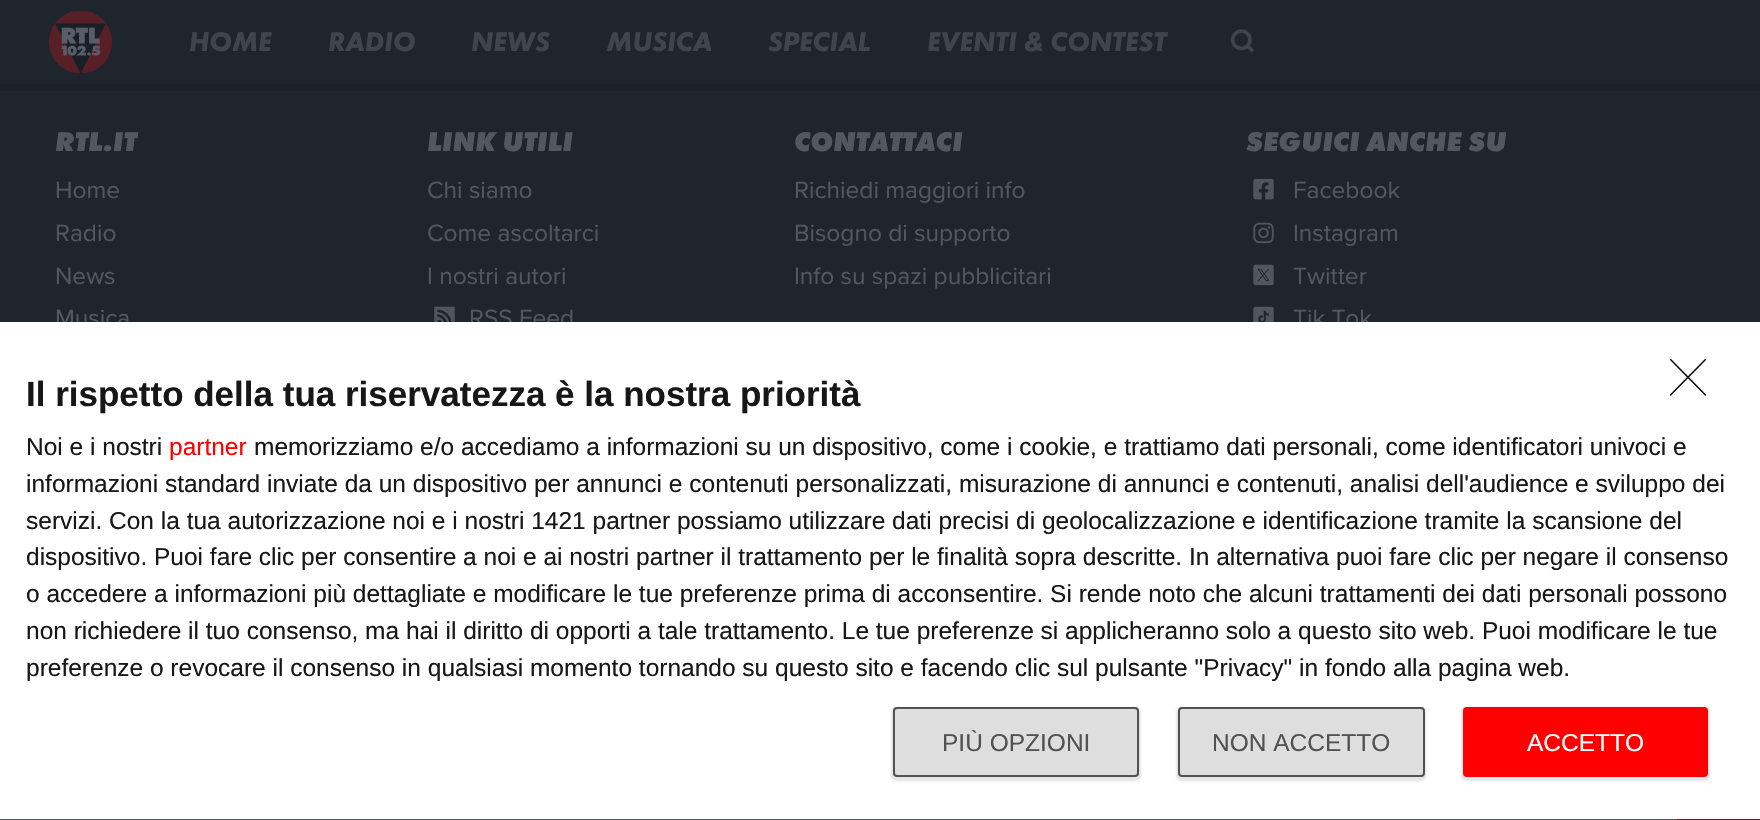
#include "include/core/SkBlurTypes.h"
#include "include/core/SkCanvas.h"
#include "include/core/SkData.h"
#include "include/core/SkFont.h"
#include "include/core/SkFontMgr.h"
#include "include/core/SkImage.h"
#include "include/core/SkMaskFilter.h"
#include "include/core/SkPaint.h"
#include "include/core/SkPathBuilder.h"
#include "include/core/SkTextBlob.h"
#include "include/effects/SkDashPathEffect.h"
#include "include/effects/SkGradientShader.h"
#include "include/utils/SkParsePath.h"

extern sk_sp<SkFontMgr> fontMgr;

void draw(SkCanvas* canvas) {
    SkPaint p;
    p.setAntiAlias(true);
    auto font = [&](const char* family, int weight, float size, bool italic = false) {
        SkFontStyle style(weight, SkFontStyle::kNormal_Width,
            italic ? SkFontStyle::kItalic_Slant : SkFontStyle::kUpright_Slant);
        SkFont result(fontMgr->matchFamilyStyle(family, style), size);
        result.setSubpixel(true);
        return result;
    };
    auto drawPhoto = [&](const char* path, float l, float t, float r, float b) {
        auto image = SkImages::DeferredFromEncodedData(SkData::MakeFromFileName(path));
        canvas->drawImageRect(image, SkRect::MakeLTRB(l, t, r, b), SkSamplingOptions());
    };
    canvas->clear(0xFF1F252D);
    drawPhoto("media/1.png", 49, 11, 112, 73);
    auto font1 = font("Futura PT", 700, 28, true);
    p.setColor(0xFF3F454D);
    {
        const struct { const char* s; float x, y; } items[] = {
            {"HOME", 189, 51},
            {"RADIO", 328, 51},
            {"NEWS", 471, 51},
            {"MUSICA", 606, 51},
            {"SPECIAL", 768, 51},
            {"EVENTI & CONTEST", 927, 51},
        };
        for (auto [s, x, y] : items) {
            canvas->drawString(s, x, y, font1, p);
        }
    }
    drawPhoto("media/2.png", 1230, 29, 1255, 53);
    {
        const struct { float l, t, r, b; SkColor color; } items[] = {
            {0, 819, 1677, 820, 0xFF50565F},
            {1677, 819, 1760, 820, 0xFF591F27},
            {0, 84, 1760, 91, 0xFF1C222A},
        };
        for (auto [l, t, r, b, color] : items) {
            p.setColor(color);
            canvas->drawRect(SkRect::MakeLTRB(l, t, r, b), p);
        }
    }
    auto font2 = font("Futura PT", 800, 28, true);
    p.setColor(0xFF525860);
    canvas->drawString("RTL.IT", 55, 151, font2, p);
    auto font3 = font("Proxima Nova", 400, 24.5f);
    {
        const struct { const char* s; float x, y; } items[] = {
            {"Home", 55, 198},
            {"Radio", 55, 241},
            {"News", 55, 284},
            {"Musica", 55, 326},
        };
        for (auto [s, x, y] : items) {
            canvas->drawString(s, x, y, font3, p);
        }
    }
    canvas->drawString("LINK UTILI", 427, 151, font2, p);
    {
        const struct { const char* s; float x, y; } items[] = {
            {"Chi siamo", 427, 198},
            {"Come ascoltarci", 427, 241},
            {"I nostri autori", 427, 284},
        };
        for (auto [s, x, y] : items) {
            canvas->drawString(s, x, y, font3, p);
        }
    }
    drawPhoto("media/3.png", 434, 306, 455, 322);
    canvas->drawString("RSS Feed", 469, 326, font3, p);
    canvas->drawString("CONTATTACI", 794, 151, font2, p);
    {
        const struct { const char* s; float x, y; } items[] = {
            {"Richiedi maggiori info", 794, 198},
            {"Bisogno di supporto", 794, 241},
            {"Info su spazi pubblicitari", 794, 284},
        };
        for (auto [s, x, y] : items) {
            canvas->drawString(s, x, y, font3, p);
        }
    }
    canvas->drawString("SEGUICI ANCHE SU", 1246, 151, font2, p);
    drawPhoto("media/4.png", 1253, 178, 1274, 200);
    canvas->drawString("Facebook", 1293, 198, font3, p);
    drawPhoto("media/5.png", 1253, 222, 1274, 244);
    canvas->drawString("Instagram", 1293, 241, font3, p);
    drawPhoto("media/6.png", 1253, 264, 1274, 286);
    canvas->drawString("Twitter", 1293, 284, font3, p);
    drawPhoto("media/7.png", 1253, 306, 1274, 322);
    canvas->drawString("Tik Tok", 1293, 326, font3, p);
    p.setColor(0xFFFFFFFF);
    canvas->drawRect(SkRect::MakeLTRB(0, 322, 1760, 819), p);
    canvas->save();
    canvas->clipRect(SkRect::MakeLTRB(1670, 359, 1706, 396));
    p.setStyle(SkPaint::kStroke_Style);
    p.setStrokeWidth(1.5f);
    p.setStrokeCap(SkPaint::kRound_Cap);
    p.setStrokeJoin(SkPaint::kRound_Join);
    p.setColor(0xFF000000);
    canvas->drawPath(SkPathBuilder().moveTo(1670.5f, 359.5f).lineTo(1705.5f, 395).moveTo(1705.5f, 359.5f).lineTo(1670.5f, 395).detach(), p);
    canvas->restore();
    auto font4 = font("Liberation Sans", 700, 35);
    p.setStyle(SkPaint::kFill_Style);
    p.setColor(0xFF171717);
    canvas->drawString("Il rispetto della tua riservatezza è la nostra priorità", 26, 406, font4, p);
    auto font5 = font("Liberation Sans", 400, 24.5f);
    canvas->drawString("Noi e i nostri", 26, 455, font5, p);
    p.setColor(0xFFFF0000);
    canvas->drawString("partner", 169, 455, font5, p);
    p.setColor(0xFF171717);
    {
        const struct { const char* s; float x, y; } items[] = {
            {"memorizziamo e/o accediamo a informazioni su un dispositivo, come i cookie, e trattiamo dati personali, come identificatori univoci e", 254, 455},
            {"informazioni standard inviate da un dispositivo per annunci e contenuti personalizzati, misurazione di annunci e contenuti, analisi dell'audience e sviluppo dei", 26, 492},
            {"servizi. Con la tua autorizzazione noi e i nostri 1421 partner possiamo utilizzare dati precisi di geolocalizzazione e identificazione tramite la scansione del", 26, 529},
            {"dispositivo. Puoi fare clic per consentire a noi e ai nostri partner il trattamento per le finalità sopra descritte. In alternativa puoi fare clic per negare il consenso", 26, 565},
            {"o accedere a informazioni più dettagliate e modificare le tue preferenze prima di acconsentire. Si rende noto che alcuni trattamenti dei dati personali possono", 26, 602},
            {"non richiedere il tuo consenso, ma hai il diritto di opporti a tale trattamento. Le tue preferenze si applicheranno solo a questo sito web. Puoi modificare le tue", 26, 639},
            {"preferenze o revocare il consenso in qualsiasi momento tornando su questo sito e facendo clic sul pulsante \"Privacy\" in fondo alla pagina web.", 26, 676},
        };
        for (auto [s, x, y] : items) {
            canvas->drawString(s, x, y, font5, p);
        }
    }
    p.setColor(0x1A000000);
    p.setMaskFilter(SkMaskFilter::MakeBlur(kNormal_SkBlurStyle, 1));
    canvas->drawRoundRect(SkRect::MakeLTRB(891, 707, 1141, 781), 5, 5, p);
    p.setMaskFilter(nullptr);
    p.setColor(0xFFDEDEDE);
    canvas->drawRoundRect(SkRect::MakeLTRB(894, 708, 1138, 776), 3, 3, p);
    p.setStyle(SkPaint::kStroke_Style);
    p.setStrokeWidth(2);
    p.setStrokeCap(SkPaint::kButt_Cap);
    p.setStrokeJoin(SkPaint::kMiter_Join);
    p.setColor(0xFF515151);
    canvas->drawRoundRect(SkRect::MakeLTRB(894, 708, 1138, 776), 3, 3, p);
    canvas->save();
    canvas->clipRect(SkRect::MakeLTRB(942, 730, 1090, 754));
    p.setStyle(SkPaint::kFill_Style);
    canvas->drawString("PIÙ OPZIONI", 942, 751, font5, p);
    canvas->restore();
    p.setColor(0x1A000000);
    p.setMaskFilter(SkMaskFilter::MakeBlur(kNormal_SkBlurStyle, 1));
    canvas->drawRoundRect(SkRect::MakeLTRB(1176, 707, 1426, 781), 5, 5, p);
    p.setMaskFilter(nullptr);
    p.setColor(0xFFDEDEDE);
    canvas->drawRoundRect(SkRect::MakeLTRB(1179, 708, 1424, 776), 3, 3, p);
    p.setStyle(SkPaint::kStroke_Style);
    p.setColor(0xFF515151);
    canvas->drawRoundRect(SkRect::MakeLTRB(1179, 708, 1424, 776), 3, 3, p);
    p.setStyle(SkPaint::kFill_Style);
    canvas->drawString("NON ACCETTO", 1212, 751, font5, p);
    p.setColor(0x1A000000);
    p.setMaskFilter(SkMaskFilter::MakeBlur(kNormal_SkBlurStyle, 1));
    canvas->drawRoundRect(SkRect::MakeLTRB(1461, 707, 1710, 781), 5, 5, p);
    p.setMaskFilter(nullptr);
    p.setColor(0xFFFF0000);
    canvas->drawRoundRect(SkRect::MakeLTRB(1463, 707, 1708, 777), 4, 4, p);
    p.setColor(0xFFFFFFFF);
    canvas->drawString("ACCETTO", 1527, 751, font5, p);
}
